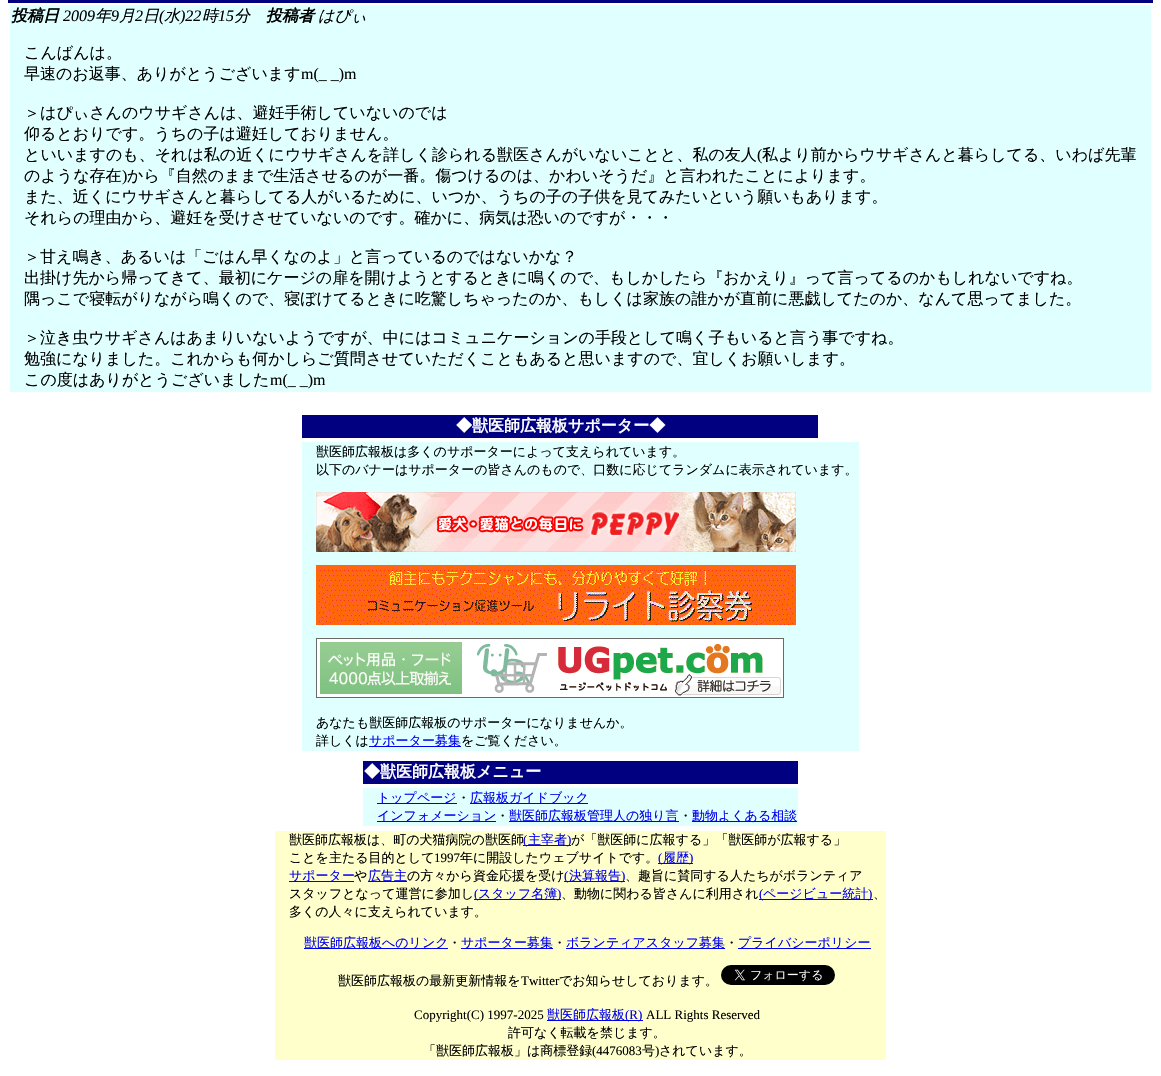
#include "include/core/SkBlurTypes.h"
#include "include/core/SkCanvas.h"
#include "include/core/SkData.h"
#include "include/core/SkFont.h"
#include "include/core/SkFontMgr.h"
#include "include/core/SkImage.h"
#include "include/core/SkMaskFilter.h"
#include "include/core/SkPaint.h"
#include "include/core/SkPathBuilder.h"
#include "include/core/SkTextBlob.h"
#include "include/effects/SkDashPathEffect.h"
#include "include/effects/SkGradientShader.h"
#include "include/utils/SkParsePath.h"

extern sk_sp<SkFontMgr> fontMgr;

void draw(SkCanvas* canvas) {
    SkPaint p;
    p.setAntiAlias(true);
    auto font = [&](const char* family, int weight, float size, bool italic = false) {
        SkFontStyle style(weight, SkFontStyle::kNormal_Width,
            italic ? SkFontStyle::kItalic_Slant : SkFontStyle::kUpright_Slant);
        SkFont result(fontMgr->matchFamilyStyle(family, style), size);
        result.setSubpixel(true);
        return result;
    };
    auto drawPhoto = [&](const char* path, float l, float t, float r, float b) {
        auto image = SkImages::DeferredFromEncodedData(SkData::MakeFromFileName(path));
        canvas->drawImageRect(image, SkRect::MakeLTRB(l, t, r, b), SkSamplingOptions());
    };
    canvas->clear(0xFFFFFFFF);
    p.setColor(0xFF000080);
    canvas->drawRect(SkRect::MakeLTRB(8, 0, 1153, 3), p);
    p.setColor(0xFFE0FFFF);
    canvas->drawRect(SkRect::MakeLTRB(10, 5, 1151, 392), p);
    auto font1 = font("WenQuanYi Zen Hei", 700, 16, true);
    p.setColor(0xFF000000);
    canvas->drawString("投稿日", 11, 21, font1, p);
    auto font2 = font("Liberation Serif", 400, 16, true);
    canvas->drawString("2009", 63, 21, font2, p);
    auto font3 = font("WenQuanYi Zen Hei", 500, 16, true);
    canvas->drawString("年", 95, 21, font3, p);
    canvas->drawString("9", 111, 21, font2, p);
    canvas->drawString("月", 119, 21, font3, p);
    canvas->drawString("2", 135, 21, font2, p);
    canvas->drawString("日", 143, 21, font3, p);
    canvas->drawString("(", 159, 21, font2, p);
    canvas->drawString("水", 164, 21, font3, p);
    canvas->drawString(")22", 180, 21, font2, p);
    canvas->drawString("時", 202, 21, font3, p);
    canvas->drawString("15", 218, 21, font2, p);
    canvas->drawString("分", 234, 21, font3, p);
    canvas->drawString("投稿者", 266, 21, font1, p);
    canvas->drawString("はぴぃ", 318, 21, font3, p);
    auto font4 = font("WenQuanYi Zen Hei", 500, 16);
    canvas->drawString("こんばんは。", 24, 58, font4, p);
    canvas->drawString("早速のお返事、ありがとうございます", 24, 79, font4, p);
    auto font5 = font("Liberation Serif", 400, 16);
    canvas->drawString("m(_ _)m", 301, 79, font5, p);
    {
        const struct { const char* s; float x, y; } items[] = {
            {"＞はぴぃさんのウサギさんは、避妊手術していないのでは", 24, 118},
            {"仰るとおりです。うちの子は避妊しておりません。", 24, 139},
            {"といいますのも、それは私の近くにウサギさんを詳しく診られる獣医さんがいないことと、私の友人", 24, 160},
        };
        for (auto [s, x, y] : items) {
            canvas->drawString(s, x, y, font4, p);
        }
    }
    canvas->drawString("(", 757, 160, font5, p);
    canvas->drawString("私より前からウサギさんと暮らしてる、いわば先輩", 762, 160, font4, p);
    canvas->drawString("のような存在", 24, 181, font4, p);
    canvas->drawString(")", 122, 181, font5, p);
    {
        const struct { const char* s; float x, y; } items[] = {
            {"から『自然のままで生活させるのが一番。傷つけるのは、かわいそうだ』と言われたことによります。", 127, 181},
            {"また、近くにウサギさんと暮らしてる人がいるために、いつか、うちの子の子供を見てみたいという願いもあります。", 24, 202},
            {"それらの理由から、避妊を受けさせていないのです。確かに、病気は恐いのですが・・・", 24, 223},
            {"＞甘え鳴き、あるいは「ごはん早くなのよ」と言っているのではないかな？", 24, 262},
            {"出掛け先から帰ってきて、最初にケージの扉を開けようとするときに鳴くので、もしかしたら『おかえり』って言ってるのかもしれないですね。", 24, 283},
            {"隅っこで寝転がりながら鳴くので、寝ぼけてるときに吃驚しちゃったのか、もしくは家族の誰かが直前に悪戯してたのか、なんて思ってました。", 24, 304},
            {"＞泣き虫ウサギさんはあまりいないようですが、中にはコミュニケーションの手段として鳴く子もいると言う事ですね。", 24, 343},
            {"勉強になりました。これからも何かしらご質問させていただくこともあると思いますので、宜しくお願いします。", 24, 364},
            {"この度はありがとうございました", 24, 385},
        };
        for (auto [s, x, y] : items) {
            canvas->drawString(s, x, y, font4, p);
        }
    }
    canvas->drawString("m(_ _)m", 270, 385, font5, p);
    p.setColor(0xFF000080);
    canvas->drawRect(SkRect::MakeLTRB(302, 415, 818, 438), p);
    auto font6 = font("WenQuanYi Zen Hei", 700, 16);
    p.setColor(0xFFFFFFFF);
    canvas->drawString("◆獣医師広報板サポーター◆", 456, 431, font6, p);
    p.setColor(0xFFE0FFFF);
    canvas->drawRect(SkRect::MakeLTRB(302, 442, 859, 751), p);
    auto font7 = font("WenQuanYi Zen Hei", 500, 13);
    p.setColor(0xFF000000);
    canvas->drawString("獣医師広報板は多くのサポーターによって支えられています。", 316, 456, font7, p);
    canvas->drawString("以下のバナーはサポーターの皆さんのもので、口数に応じてランダムに表示されています。", 316, 474, font7, p);
    drawPhoto("media/1.png", 316, 492, 796, 552);
    drawPhoto("media/2.png", 316, 565, 796, 625);
    drawPhoto("media/3.png", 316, 638, 784, 698);
    canvas->drawString("あなたも獣医師広報板のサポーターになりませんか。", 316, 727, font7, p);
    canvas->drawString("詳しくは", 316, 745, font7, p);
    p.setColor(0xFF0000EE);
    canvas->drawRect(SkRect::MakeLTRB(369, 746, 461, 747), p);
    canvas->drawString("サポーター募集", 369, 745, font7, p);
    p.setColor(0xFF000000);
    canvas->drawString("をご覧ください。", 461, 745, font7, p);
    p.setColor(0xFF000080);
    canvas->drawRect(SkRect::MakeLTRB(363, 761, 798, 784), p);
    p.setColor(0xFFFFFFFF);
    canvas->drawString("◆獣医師広報板メニュー", 364, 777, font6, p);
    p.setColor(0xFFE0FFFF);
    canvas->drawRect(SkRect::MakeLTRB(363, 788, 798, 826), p);
    p.setColor(0xFF0000EE);
    canvas->drawRect(SkRect::MakeLTRB(377, 803, 457, 804), p);
    canvas->drawString("トップページ", 377, 802, font7, p);
    p.setColor(0xFF000000);
    canvas->drawString("・", 457, 802, font7, p);
    p.setColor(0xFF0000EE);
    canvas->drawRect(SkRect::MakeLTRB(470, 803, 588, 804), p);
    canvas->drawString("広報板ガイドブック", 470, 802, font7, p);
    canvas->drawRect(SkRect::MakeLTRB(377, 821, 496, 822), p);
    canvas->drawString("インフォメーション", 377, 820, font7, p);
    p.setColor(0xFF000000);
    canvas->drawString("・", 496, 820, font7, p);
    p.setColor(0xFF0000EE);
    canvas->drawRect(SkRect::MakeLTRB(509, 821, 679, 822), p);
    canvas->drawString("獣医師広報板管理人の独り言", 509, 820, font7, p);
    p.setColor(0xFF000000);
    canvas->drawString("・", 679, 820, font7, p);
    p.setColor(0xFF0000EE);
    canvas->drawRect(SkRect::MakeLTRB(692, 821, 797, 822), p);
    canvas->drawString("動物よくある相談", 692, 820, font7, p);
    p.setColor(0xFFFFFFCC);
    canvas->drawRect(SkRect::MakeLTRB(275, 831, 886, 1060), p);
    p.setColor(0xFF000000);
    canvas->drawString("獣医師広報板は、町の犬猫病院の獣医師", 289, 844, font7, p);
    p.setColor(0xFF0000EE);
    canvas->drawRect(SkRect::MakeLTRB(523, 845, 571, 846), p);
    auto font8 = font("Liberation Serif", 400, 13);
    canvas->drawString("(", 523, 844, font8, p);
    canvas->drawString("主宰者", 528, 844, font7, p);
    canvas->drawString(")", 567, 844, font8, p);
    p.setColor(0xFF000000);
    canvas->drawString("が「獣医師に広報する」「獣医師が広報する」", 571, 844, font7, p);
    canvas->drawString("ことを主たる目的として", 289, 862, font7, p);
    canvas->drawString("1997", 434, 862, font8, p);
    canvas->drawString("年に開設したウェブサイトです。", 460, 862, font7, p);
    p.setColor(0xFF0000EE);
    canvas->drawRect(SkRect::MakeLTRB(658, 863, 693, 864), p);
    canvas->drawString("(", 658, 862, font8, p);
    canvas->drawString("履歴", 663, 862, font7, p);
    canvas->drawString(")", 689, 862, font8, p);
    canvas->drawRect(SkRect::MakeLTRB(289, 881, 354, 882), p);
    canvas->drawString("サポーター", 289, 880, font7, p);
    p.setColor(0xFF000000);
    canvas->drawString("や", 354, 880, font7, p);
    p.setColor(0xFF0000EE);
    canvas->drawRect(SkRect::MakeLTRB(368, 881, 407, 882), p);
    canvas->drawString("広告主", 368, 880, font7, p);
    p.setColor(0xFF000000);
    canvas->drawString("の方々から資金応援を受け", 407, 880, font7, p);
    p.setColor(0xFF0000EE);
    canvas->drawRect(SkRect::MakeLTRB(564, 881, 625, 882), p);
    canvas->drawString("(", 564, 880, font8, p);
    canvas->drawString("決算報告", 569, 880, font7, p);
    canvas->drawString(")", 621, 880, font8, p);
    p.setColor(0xFF000000);
    canvas->drawString("、趣旨に賛同する人たちがボランティア", 625, 880, font7, p);
    canvas->drawString("スタッフとなって運営に参加し", 289, 898, font7, p);
    p.setColor(0xFF0000EE);
    canvas->drawRect(SkRect::MakeLTRB(474, 899, 561, 900), p);
    canvas->drawString("(", 474, 898, font8, p);
    canvas->drawString("スタッフ名簿", 478, 898, font7, p);
    canvas->drawString(")", 557, 898, font8, p);
    p.setColor(0xFF000000);
    canvas->drawString("、動物に関わる皆さんに利用され", 561, 898, font7, p);
    p.setColor(0xFF0000EE);
    canvas->drawRect(SkRect::MakeLTRB(759, 899, 873, 900), p);
    canvas->drawString("(", 759, 898, font8, p);
    canvas->drawString("ページビュー統計", 763, 898, font7, p);
    canvas->drawString(")", 868, 898, font8, p);
    p.setColor(0xFF000000);
    canvas->drawString("、", 873, 898, font7, p);
    canvas->drawString("多くの人々に支えられています。", 289, 916, font7, p);
    p.setColor(0xFF0000EE);
    canvas->drawRect(SkRect::MakeLTRB(304, 948, 448, 949), p);
    canvas->drawString("獣医師広報板へのリンク", 304, 947, font7, p);
    p.setColor(0xFF000000);
    canvas->drawString("・", 448, 947, font7, p);
    p.setColor(0xFF0000EE);
    canvas->drawRect(SkRect::MakeLTRB(461, 948, 553, 949), p);
    canvas->drawString("サポーター募集", 461, 947, font7, p);
    p.setColor(0xFF000000);
    canvas->drawString("・", 553, 947, font7, p);
    p.setColor(0xFF0000EE);
    canvas->drawRect(SkRect::MakeLTRB(566, 948, 725, 949), p);
    canvas->drawString("ボランティアスタッフ募集", 566, 947, font7, p);
    p.setColor(0xFF000000);
    canvas->drawString("・", 725, 947, font7, p);
    p.setColor(0xFF0000EE);
    canvas->drawRect(SkRect::MakeLTRB(738, 948, 871, 949), p);
    canvas->drawString("プライバシーポリシー", 738, 947, font7, p);
    p.setColor(0xFF000000);
    canvas->drawString("獣医師広報板の最新更新情報を", 338, 985, font7, p);
    canvas->drawString("Twitter", 521, 985, font8, p);
    canvas->drawString("でお知らせしております。", 559, 985, font7, p);
    drawPhoto("media/4.png", 721, 965, 835, 985);
    canvas->drawString("Copyright(C) 1997-2025", 414, 1019, font8, p);
    p.setColor(0xFF0000EE);
    canvas->drawRect(SkRect::MakeLTRB(547, 1020, 643, 1021), p);
    canvas->drawString("獣医師広報板", 547, 1019, font7, p);
    canvas->drawString("(R)", 625, 1019, font8, p);
    p.setColor(0xFF000000);
    canvas->drawString("ALL Rights Reserved", 646, 1019, font8, p);
    canvas->drawString("許可なく転載を禁じます。", 508, 1037, font7, p);
    canvas->drawString("「獣医師広報板」は商標登録", 423, 1055, font7, p);
    canvas->drawString("(4476083", 592, 1055, font8, p);
    canvas->drawString("号", 642, 1055, font7, p);
    canvas->drawString(")", 655, 1055, font8, p);
    canvas->drawString("されています。", 659, 1055, font7, p);
}
